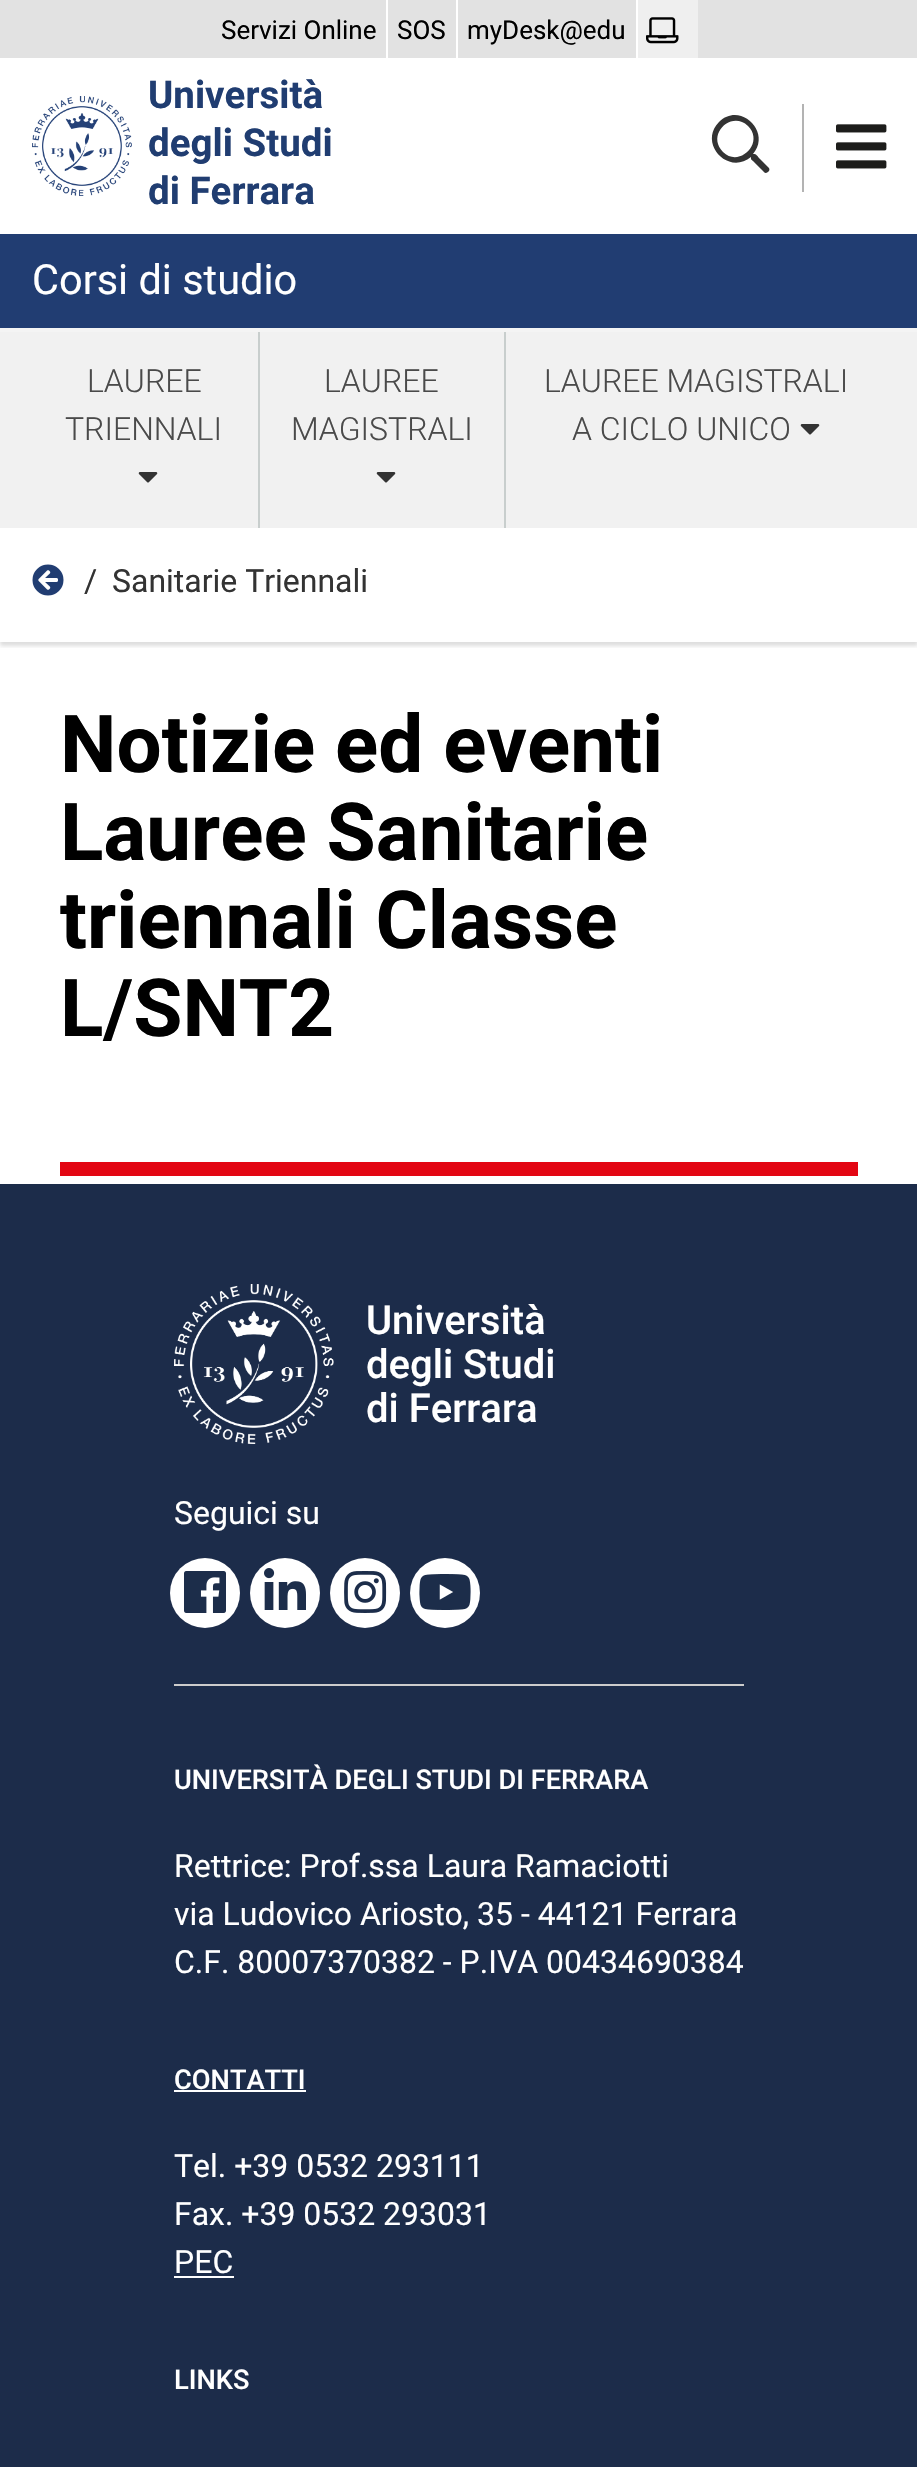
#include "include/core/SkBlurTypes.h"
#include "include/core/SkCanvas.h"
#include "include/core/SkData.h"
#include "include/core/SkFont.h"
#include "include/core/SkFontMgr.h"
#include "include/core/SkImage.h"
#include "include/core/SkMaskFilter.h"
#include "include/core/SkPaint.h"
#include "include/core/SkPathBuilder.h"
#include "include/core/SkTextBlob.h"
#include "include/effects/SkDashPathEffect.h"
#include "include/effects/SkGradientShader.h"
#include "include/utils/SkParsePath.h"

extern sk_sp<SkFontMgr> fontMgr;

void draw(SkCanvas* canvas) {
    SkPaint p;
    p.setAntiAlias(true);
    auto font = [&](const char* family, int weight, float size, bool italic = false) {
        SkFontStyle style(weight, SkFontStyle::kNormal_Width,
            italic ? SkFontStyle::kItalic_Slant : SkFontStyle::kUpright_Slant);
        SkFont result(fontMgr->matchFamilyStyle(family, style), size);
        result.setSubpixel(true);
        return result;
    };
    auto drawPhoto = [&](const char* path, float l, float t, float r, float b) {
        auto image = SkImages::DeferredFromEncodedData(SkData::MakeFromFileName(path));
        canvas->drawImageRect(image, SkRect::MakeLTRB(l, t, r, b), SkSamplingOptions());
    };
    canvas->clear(0xFFFFFFFF);
    p.setColor(0xFFE2E2E2);
    canvas->drawRect(SkRect::MakeLTRB(0, 0, 917, 58), p);
    p.setColor(0xFFFFFFFF);
    canvas->drawRect(SkRect::MakeLTRB(386, 0, 388, 58), p);
    auto font1 = font("Roboto", 400, 26);
    p.setColor(0xFF000000);
    canvas->drawString("Servizi Online", 221, 39, font1, p);
    p.setColor(0xFFFFFFFF);
    canvas->drawRect(SkRect::MakeLTRB(456, 0, 458, 58), p);
    p.setColor(0xFF000000);
    canvas->drawString("SOS", 397, 39, font1, p);
    p.setColor(0xFFFFFFFF);
    canvas->drawRect(SkRect::MakeLTRB(636, 0, 638, 58), p);
    p.setColor(0xFF000000);
    canvas->drawString("myDesk@edu", 467, 39, font1, p);
    p.setColor(0xFFEFEFEF);
    canvas->drawRect(SkRect::MakeLTRB(638, 0, 698, 58), p);
    drawPhoto("media/1.png", 646, 17, 679, 44);
    p.setColor(0xFFF4F4F4);
    canvas->drawRect(SkRect::MakeLTRB(0, 328, 917, 332), p);
    drawPhoto("media/2.png", 32, 96, 132, 196);
    auto font2 = font("Roboto", 700, 38.5f);
    p.setColor(0xFF203D71);
    {
        const struct { const char* s; float x, y; } items[] = {
            {"Università", 148, 108},
            {"degli Studi", 148, 156},
            {"di Ferrara", 148, 204},
        };
        for (auto [s, x, y] : items) {
            canvas->drawString(s, x, y, font2, p);
        }
    }
    p.setColor(0xFF333333);
    canvas->drawPath(SkPathBuilder().moveTo(769, 168).cubicTo(770, 170, 769, 171, 768, 172).cubicTo(765, 174, 765, 173, 762, 170).lineTo(753, 161).cubicTo(751, 159, 751, 160, 751, 157).cubicTo(728, 176, 698, 143, 719, 122).cubicTo(740, 101, 772, 132, 753, 154).cubicTo(757, 154, 757, 156, 760, 159).close().moveTo(723, 152).cubicTo(739, 168, 765, 143, 748, 126).cubicTo(731, 110, 706, 135, 723, 152).close().detach(), p);
    p.setColor(0xFFB3B3B3);
    canvas->drawRect(SkRect::MakeLTRB(802, 104, 804, 192), p);
    drawPhoto("media/3.png", 836, 124, 887, 169);
    p.setColor(0xFF213D72);
    canvas->drawRect(SkRect::MakeLTRB(0, 234, 917, 328), p);
    auto font3 = font("Roboto", 400, 41.5f);
    p.setColor(0xFFFFFFFF);
    canvas->drawString("Corsi di studio", 32, 294, font3, p);
    canvas->save();
    canvas->clipRect(SkRect::MakeLTRB(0, 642, 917, 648));
    p.setColor(0x21000000);
    p.setMaskFilter(SkMaskFilter::MakeBlur(kNormal_SkBlurStyle, 2));
    canvas->drawRect(SkRect::MakeLTRB(0, 532, 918, 646), p);
    p.setMaskFilter(nullptr);
    canvas->restore();
    p.setColor(0xFFF1F1F1);
    canvas->drawRect(SkRect::MakeLTRB(0, 332, 917, 528), p);
    p.setColor(0xFFC8CECD);
    canvas->drawRect(SkRect::MakeLTRB(258, 332, 260, 528), p);
    auto font4 = font("Roboto", 300, 32);
    p.setColor(0xFF4A4A4A);
    canvas->drawString("LAUREE", 87, 392, font4, p);
    canvas->drawString("TRIENNALI", 65, 440, font4, p);
    drawPhoto("media/4.png", 138, 472, 158, 483);
    p.setColor(0xFFC8CECD);
    canvas->drawRect(SkRect::MakeLTRB(504, 332, 506, 528), p);
    p.setColor(0xFF4A4A4A);
    canvas->drawString("LAUREE", 324, 392, font4, p);
    canvas->drawString("MAGISTRALI", 291, 440, font4, p);
    drawPhoto("media/4.png", 376, 472, 396, 483);
    canvas->drawString("LAUREE MAGISTRALI", 544, 392, font4, p);
    canvas->drawString("A CICLO UNICO", 572, 440, font4, p);
    drawPhoto("media/4.png", 800, 424, 820, 435);
    drawPhoto("media/5.png", 32, 564, 64, 596);
    auto font5 = font("Roboto", 400, 32);
    p.setColor(0xFF333333);
    canvas->drawString("/", 84, 592, font5, p);
    canvas->drawString("Sanitarie Triennali", 112, 592, font5, p);
    auto font6 = font("Roboto", 700, 80);
    p.setColor(0xFF000000);
    {
        const struct { const char* s; float x, y; } items[] = {
            {"Notizie ed eventi", 60, 772},
            {"Lauree Sanitarie", 60, 860},
            {"triennali Classe", 60, 948},
            {"L/SNT2", 60, 1036},
        };
        for (auto [s, x, y] : items) {
            canvas->drawString(s, x, y, font6, p);
        }
    }
    p.setColor(0xFFE30613);
    canvas->drawRect(SkRect::MakeLTRB(60, 1162, 858, 1176), p);
    p.setColor(0xFF1C2C4A);
    canvas->drawRect(SkRect::MakeLTRB(0, 1184, 917, 2467), p);
    drawPhoto("media/6.png", 174, 1284, 334, 1444);
    auto font7 = font("Roboto", 500, 40);
    p.setColor(0xFFFFFFFF);
    {
        const struct { const char* s; float x, y; } items[] = {
            {"Università", 366, 1334},
            {"degli Studi", 366, 1378},
            {"di Ferrara", 366, 1422},
        };
        for (auto [s, x, y] : items) {
            canvas->drawString(s, x, y, font7, p);
        }
    }
    p.setColor(0xFFCCCCCC);
    canvas->drawRect(SkRect::MakeLTRB(174, 1684, 744, 1686), p);
    p.setColor(0xFFFFFFFF);
    canvas->drawString("Seguici su", 174, 1524, font5, p);
    canvas->drawCircle(205, 1593, 35, p);
    drawPhoto("media/7.png", 184, 1571, 226, 1613);
    canvas->drawCircle(285, 1593, 35, p);
    drawPhoto("media/8.png", 264, 1568, 306, 1610);
    canvas->drawCircle(365, 1593, 35, p);
    drawPhoto("media/9.png", 344, 1571, 387, 1613);
    canvas->drawCircle(445, 1593, 35, p);
    drawPhoto("media/10.png", 419, 1574, 471, 1610);
    auto font8 = font("Roboto", 500, 27.25f);
    canvas->drawString("UNIVERSITÀ DEGLI STUDI DI FERRARA", 174, 1789, font8, p);
    {
        const struct { const char* s; float x, y; } items[] = {
            {"Rettrice: Prof.ssa Laura Ramaciotti", 174, 1877},
            {"via Ludovico Ariosto, 35 - 44121 Ferrara", 174, 1925},
            {"C.F. 80007370382 - P.IVA 00434690384", 174, 1973},
        };
        for (auto [s, x, y] : items) {
            canvas->drawString(s, x, y, font5, p);
        }
    }
    canvas->drawString("CONTATTI", 174, 2089, font8, p);
    canvas->drawRect(SkRect::MakeLTRB(174, 2090, 306, 2092), p);
    {
        const struct { const char* s; float x, y; } items[] = {
            {"Tel. +39 0532 293111", 174, 2177},
            {"Fax. +39 0532 293031", 174, 2225},
            {"PEC", 174, 2273},
        };
        for (auto [s, x, y] : items) {
            canvas->drawString(s, x, y, font5, p);
        }
    }
    canvas->drawRect(SkRect::MakeLTRB(174, 2276, 234, 2278), p);
    canvas->drawString("LINKS", 174, 2389, font8, p);
}
